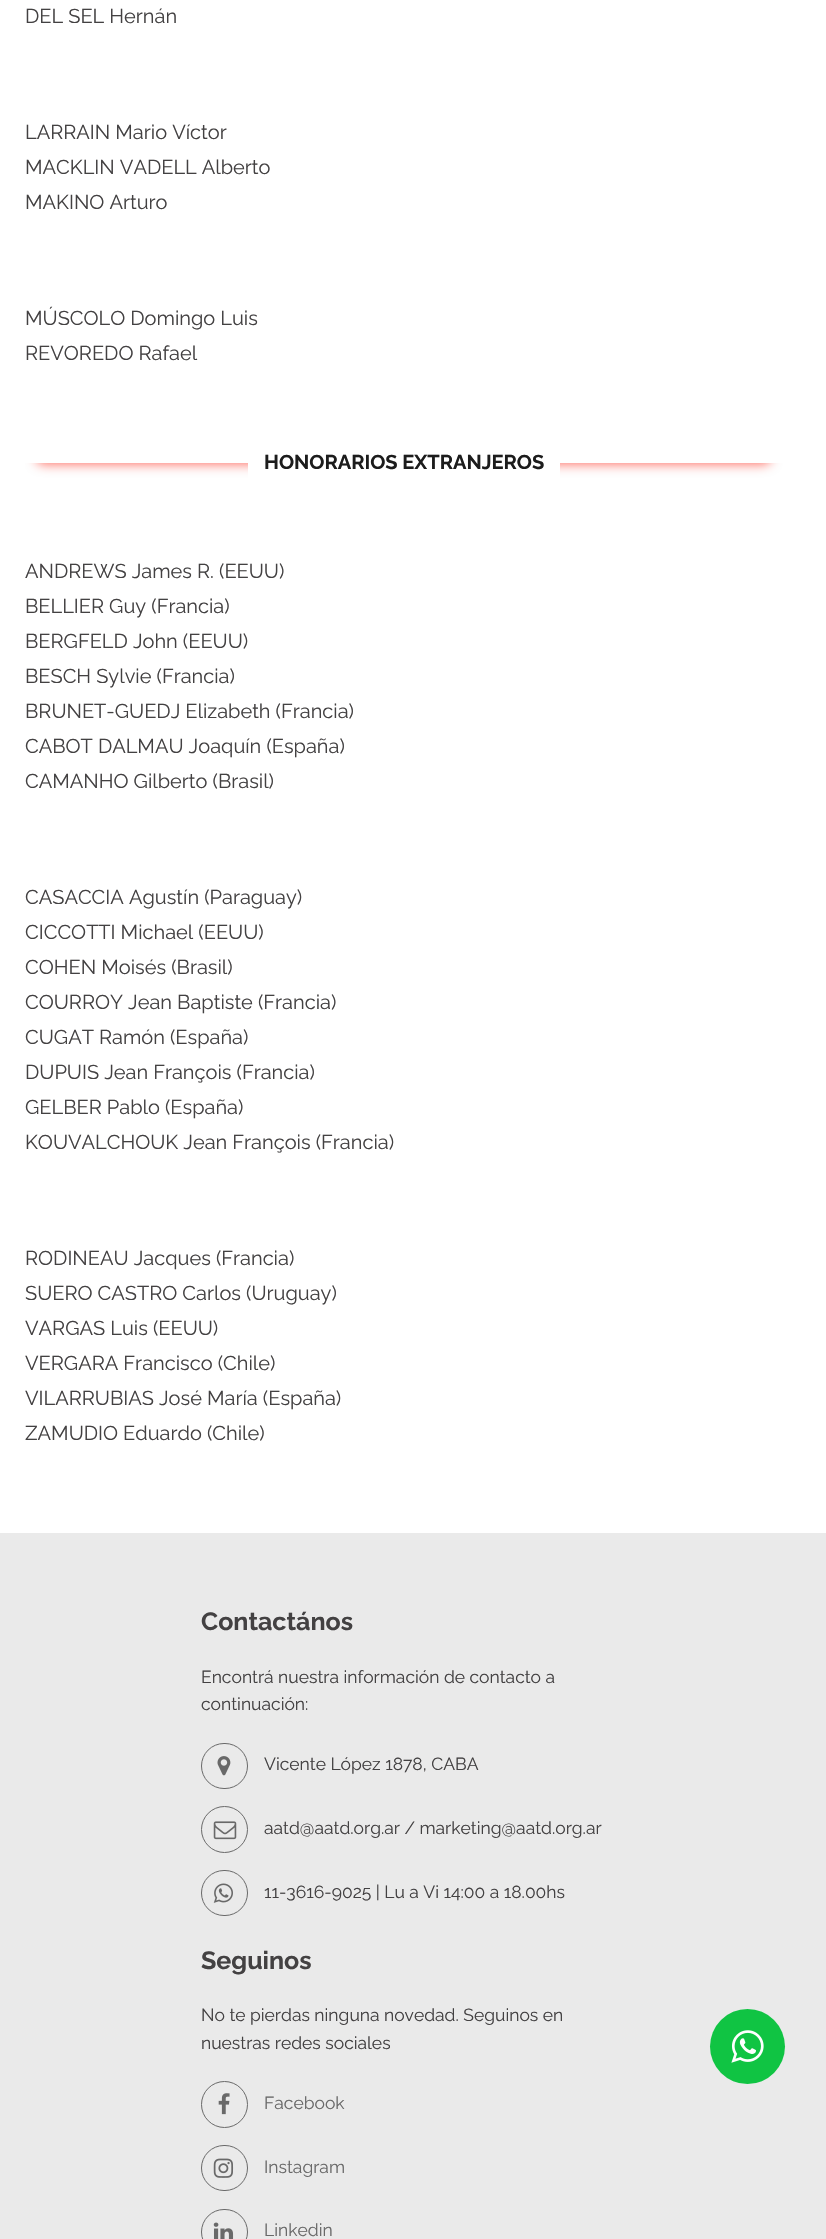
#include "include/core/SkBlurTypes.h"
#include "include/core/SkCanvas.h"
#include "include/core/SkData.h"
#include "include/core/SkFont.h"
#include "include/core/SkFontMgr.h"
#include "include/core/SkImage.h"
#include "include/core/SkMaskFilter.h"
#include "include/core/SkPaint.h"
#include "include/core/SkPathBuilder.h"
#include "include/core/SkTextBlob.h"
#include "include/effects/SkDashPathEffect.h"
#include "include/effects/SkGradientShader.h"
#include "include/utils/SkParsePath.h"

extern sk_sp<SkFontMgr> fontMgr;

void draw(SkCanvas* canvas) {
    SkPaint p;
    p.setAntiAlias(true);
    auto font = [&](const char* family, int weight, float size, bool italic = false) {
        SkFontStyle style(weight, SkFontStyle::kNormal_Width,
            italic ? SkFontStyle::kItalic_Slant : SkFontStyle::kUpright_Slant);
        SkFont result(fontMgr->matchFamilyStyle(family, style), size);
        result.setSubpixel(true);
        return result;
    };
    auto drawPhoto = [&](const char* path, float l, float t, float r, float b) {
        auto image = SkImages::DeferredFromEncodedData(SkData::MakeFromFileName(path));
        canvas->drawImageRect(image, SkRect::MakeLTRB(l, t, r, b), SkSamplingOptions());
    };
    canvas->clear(0xFFFFFFFF);
    auto font1 = font("Raleway", 400, 20);
    p.setColor(0xFF434142);
    {
        const struct { const char* s; float x, y; } items[] = {
            {"DEL SEL Hernán", 25, 23},
            {"LARRAIN Mario Víctor", 25, 139},
            {"MACKLIN VADELL Alberto", 25, 174},
            {"MAKINO Arturo", 25, 209},
            {"MÚSCOLO Domingo Luis", 25, 325},
            {"REVOREDO Rafael", 25, 360},
        };
        for (auto [s, x, y] : items) {
            canvas->drawString(s, x, y, font1, p);
        }
    }
    canvas->save();
    canvas->clipRect(SkRect::MakeLTRB(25, 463, 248, 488));
    p.setColor(0xFFFE6C61);
    p.setMaskFilter(SkMaskFilter::MakeBlur(kNormal_SkBlurStyle, 6));
    canvas->drawRoundRect(SkRect::MakeLTRB(36, 449, 484, 464), 7.5f, 7.5f, p);
    p.setMaskFilter(nullptr);
    canvas->restore();
    canvas->save();
    canvas->clipRect(SkRect::MakeLTRB(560, 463, 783, 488));
    p.setMaskFilter(SkMaskFilter::MakeBlur(kNormal_SkBlurStyle, 6));
    canvas->drawRoundRect(SkRect::MakeLTRB(324, 449, 771, 464), 7.5f, 7.5f, p);
    p.setMaskFilter(nullptr);
    canvas->restore();
    auto font2 = font("Raleway", 700, 20);
    p.setColor(0xFF1C1C1C);
    canvas->drawString("HONORARIOS EXTRANJEROS", 264, 469, font2, p);
    p.setColor(0xFF434142);
    {
        const struct { const char* s; float x, y; } items[] = {
            {"ANDREWS James R. (EEUU)", 25, 578},
            {"BELLIER Guy (Francia)", 25, 613},
            {"BERGFELD John (EEUU)", 25, 648},
            {"BESCH Sylvie (Francia)", 25, 683},
            {"BRUNET-GUEDJ Elizabeth (Francia)", 25, 718},
            {"CABOT DALMAU Joaquín (España)", 25, 753},
            {"CAMANHO Gilberto (Brasil)", 25, 788},
            {"CASACCIA Agustín (Paraguay)", 25, 904},
            {"CICCOTTI Michael (EEUU)", 25, 939},
            {"COHEN Moisés (Brasil)", 25, 974},
            {"COURROY Jean Baptiste (Francia)", 25, 1009},
            {"CUGAT Ramón (España)", 25, 1044},
            {"DUPUIS Jean François (Francia)", 25, 1079},
            {"GELBER Pablo (España)", 25, 1114},
            {"KOUVALCHOUK Jean François (Francia)", 25, 1149},
            {"RODINEAU Jacques (Francia)", 25, 1265},
            {"SUERO CASTRO Carlos (Uruguay)", 25, 1300},
            {"VARGAS Luis (EEUU)", 25, 1335},
            {"VERGARA Francisco (Chile)", 25, 1370},
            {"VILARRUBIAS José María (España)", 25, 1405},
            {"ZAMUDIO Eduardo (Chile)", 25, 1440},
        };
        for (auto [s, x, y] : items) {
            canvas->drawString(s, x, y, font1, p);
        }
    }
    p.setColor(0xFFEAEAEA);
    canvas->drawRect(SkRect::MakeLTRB(0, 1533, 826, 2239), p);
    auto font3 = font("Raleway", 700, 25);
    p.setColor(0xFF434142);
    canvas->drawString("Contactános", 201, 1630, font3, p);
    auto font4 = font("Raleway", 400, 17.5f);
    canvas->drawString("Encontrá nuestra información de contacto a", 201, 1683, font4, p);
    canvas->drawString("continuación:", 201, 1710, font4, p);
    p.setStyle(SkPaint::kStroke_Style);
    p.setStrokeWidth(1);
    p.setColor(0xFF696969);
    canvas->drawRoundRect(SkRect::MakeLTRB(201.5f, 1743.5f, 247.5f, 1788.5f), 22.5f, 22.5f, p);
    drawPhoto("media/1.png", 217, 1756, 231, 1776);
    p.setStyle(SkPaint::kFill_Style);
    p.setColor(0xFF434142);
    canvas->drawString("Vicente López 1878, CABA", 264, 1770, font4, p);
    p.setStyle(SkPaint::kStroke_Style);
    p.setColor(0xFF696969);
    canvas->drawCircle(224.5f, 1829.5f, 23, p);
    drawPhoto("media/2.png", 213, 1821, 237, 1840);
    p.setStyle(SkPaint::kFill_Style);
    p.setColor(0xFF434142);
    canvas->drawString("aatd@aatd.org.ar / marketing@aatd.org.ar", 264, 1834, font4, p);
    p.setStyle(SkPaint::kStroke_Style);
    p.setColor(0xFF696969);
    canvas->drawRoundRect(SkRect::MakeLTRB(201.5f, 1870.5f, 247.5f, 1915.5f), 22.5f, 22.5f, p);
    drawPhoto("media/3.png", 213, 1883, 233, 1903);
    p.setStyle(SkPaint::kFill_Style);
    p.setColor(0xFF434142);
    canvas->drawString("11-3616-9025 | Lu a Vi 14:00 a 18.00hs", 264, 1898, font4, p);
    canvas->drawString("Seguinos", 201, 1969, font3, p);
    canvas->drawString("No te pierdas ninguna novedad. Seguinos en", 201, 2021, font4, p);
    canvas->drawString("nuestras redes sociales", 201, 2049, font4, p);
    p.setStyle(SkPaint::kStroke_Style);
    p.setColor(0xFF696969);
    canvas->drawCircle(224.5f, 2104.5f, 23, p);
    drawPhoto("media/4.png", 218, 2093, 230, 2115);
    p.setStyle(SkPaint::kFill_Style);
    canvas->drawString("Facebook", 264, 2109, font4, p);
    p.setStyle(SkPaint::kStroke_Style);
    canvas->drawRoundRect(SkRect::MakeLTRB(201.5f, 2145.5f, 247.5f, 2190.5f), 22.5f, 22.5f, p);
    drawPhoto("media/5.png", 213, 2158, 234, 2178);
    p.setStyle(SkPaint::kFill_Style);
    canvas->drawString("Instagram", 264, 2173, font4, p);
    p.setStyle(SkPaint::kStroke_Style);
    canvas->drawRoundRect(SkRect::MakeLTRB(201.5f, 2209.5f, 247.5f, 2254.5f), 22.5f, 22.5f, p);
    drawPhoto("media/6.png", 213, 2222, 234, 2239);
    p.setStyle(SkPaint::kFill_Style);
    canvas->drawString("Linkedin", 264, 2236, font4, p);
    p.setColor(0xFF10C443);
    canvas->drawCircle(747.5f, 2046.5f, 37.5f, p);
    drawPhoto("media/7.png", 731, 2030, 764, 2063);
}
